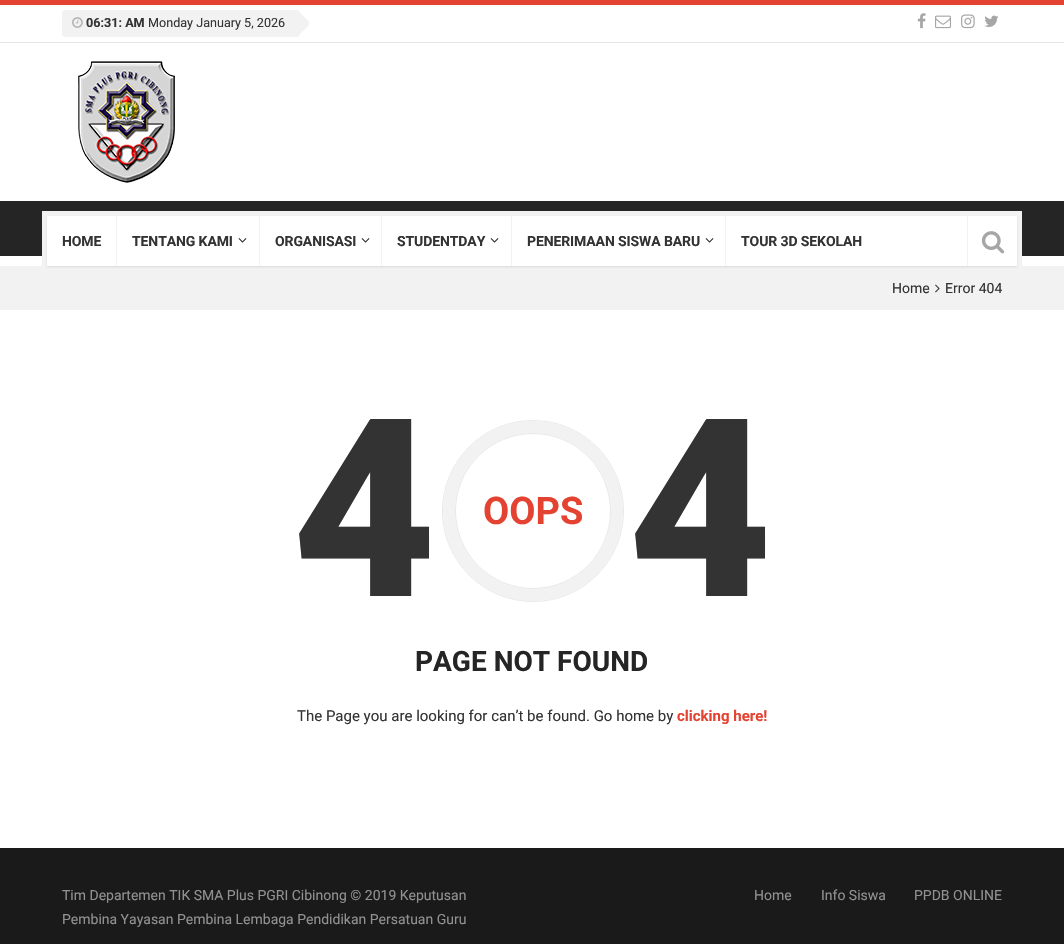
#include "include/core/SkBlurTypes.h"
#include "include/core/SkCanvas.h"
#include "include/core/SkData.h"
#include "include/core/SkFont.h"
#include "include/core/SkFontMgr.h"
#include "include/core/SkImage.h"
#include "include/core/SkMaskFilter.h"
#include "include/core/SkPaint.h"
#include "include/core/SkPathBuilder.h"
#include "include/core/SkTextBlob.h"
#include "include/effects/SkDashPathEffect.h"
#include "include/effects/SkGradientShader.h"
#include "include/utils/SkParsePath.h"

extern sk_sp<SkFontMgr> fontMgr;

void draw(SkCanvas* canvas) {
    SkPaint p;
    p.setAntiAlias(true);
    auto font = [&](const char* family, int weight, float size, bool italic = false) {
        SkFontStyle style(weight, SkFontStyle::kNormal_Width,
            italic ? SkFontStyle::kItalic_Slant : SkFontStyle::kUpright_Slant);
        SkFont result(fontMgr->matchFamilyStyle(family, style), size);
        result.setSubpixel(true);
        return result;
    };
    auto drawTracked = [&](const char* s, float x, float y, const SkFont& font, const SkPaint& ink, float letter, float word) {
        std::vector<SkGlyphID> glyphs(font.countText(s, strlen(s), SkTextEncoding::kUTF8));
        std::vector<float> xs(glyphs.size());
        font.textToGlyphs(s, strlen(s), SkTextEncoding::kUTF8, glyphs);
        font.getXPos(glyphs, xs, x);
        float extra = 0;
        for (size_t i = 0; i < glyphs.size(); i++) {
            xs[i] += extra;
            extra += letter + word * (glyphs[i] == font.unicharToGlyph(' '));
        }
        canvas->drawTextBlob(SkTextBlob::MakeFromPosHGlyphs(glyphs, xs, y, font), 0, 0, ink);
    };
    auto drawPhoto = [&](const char* path, float l, float t, float r, float b) {
        auto image = SkImages::DeferredFromEncodedData(SkData::MakeFromFileName(path));
        canvas->drawImageRect(image, SkRect::MakeLTRB(l, t, r, b), SkSamplingOptions());
    };
    canvas->clear(0xFFFFFFFF);
    p.setColor(0xFFE44332);
    canvas->drawRect(SkRect::MakeLTRB(0, 0, 1064, 5), p);
    p.setColor(0xFFE6E6E6);
    canvas->drawRect(SkRect::MakeLTRB(0, 42, 1064, 43), p);
    p.setColor(0xFFF2F2F2);
    canvas->drawRoundRect(SkRect::MakeLTRB(62, 10, 300, 37), 4, 4, p);
    drawPhoto("media/1.png", 72, 17, 83, 28);
    auto font1 = font("Roboto", 700, 12.6f);
    p.setColor(0xFF333333);
    canvas->drawString("06:31: AM", 86, 27, font1, p);
    p.setColor(0xFFF2F2F2);
    canvas->drawPath(SkPathBuilder().moveTo(299.5f, 12).lineTo(308, 20.5f).cubicTo(309.5f, 22, 309.5f, 24.5f, 308, 26).lineTo(299.5f, 34.5f).cubicTo(298, 36, 295.5f, 36, 294, 34.5f).lineTo(285.5f, 26).cubicTo(284, 24.5f, 284, 22, 285.5f, 20.5f).lineTo(294, 12).cubicTo(295.5f, 10.5f, 298, 10.5f, 299.5f, 12).close().detach(), p);
    auto font2 = font("Roboto", 400, 12.6f);
    p.setColor(0xFF333333);
    canvas->drawString("Monday January 5, 2026", 148, 27, font2, p);
    drawPhoto("media/2.png", 917, 13, 926, 29);
    drawPhoto("media/3.png", 935, 15, 951, 29);
    drawPhoto("media/4.png", 961, 14, 975, 29);
    drawPhoto("media/5.png", 984, 15, 999, 27);
    drawPhoto("media/6.png", 78, 61, 175, 183);
    {
        const struct { float l, t, r, b; SkColor color; } items[] = {
            {0, 201, 1064, 256, 0xFF252525},
            {42, 211, 1022, 266, 0xFFF2F2F2},
            {0, 266, 1064, 310, 0xFFF2F2F2},
        };
        for (auto [l, t, r, b, color] : items) {
            p.setColor(color);
            canvas->drawRect(SkRect::MakeLTRB(l, t, r, b), p);
        }
    }
    p.setColor(0x336C6C6C);
    p.setMaskFilter(SkMaskFilter::MakeBlur(kNormal_SkBlurStyle, 1));
    canvas->drawRect(SkRect::MakeLTRB(47, 217, 1017, 267), p);
    p.setMaskFilter(nullptr);
    p.setColor(0xFFFFFFFF);
    canvas->drawRect(SkRect::MakeLTRB(47, 216, 1017, 266), p);
    auto font3 = font("Roboto", 700, 14);
    p.setColor(0xFF333333);
    drawTracked("HOME", 62, 246, font3, p, -0.1f, 0);
    p.setColor(0xFFF2F2F2);
    canvas->drawRect(SkRect::MakeLTRB(116, 216, 117, 266), p);
    p.setColor(0xFF333333);
    drawTracked("TENTANG KAMI", 132, 246, font3, p, -0.1f, 0);
    drawPhoto("media/7.png", 238, 238, 247, 243);
    p.setColor(0xFFF2F2F2);
    canvas->drawRect(SkRect::MakeLTRB(259, 216, 260, 266), p);
    p.setColor(0xFF333333);
    drawTracked("ORGANISASI", 275, 246, font3, p, -0.1f, 0);
    drawPhoto("media/7.png", 361, 238, 370, 243);
    p.setColor(0xFFF2F2F2);
    canvas->drawRect(SkRect::MakeLTRB(381, 216, 382, 266), p);
    p.setColor(0xFF333333);
    drawTracked("STUDENTDAY", 397, 246, font3, p, -0.1f, 0);
    drawPhoto("media/7.png", 490, 238, 499, 243);
    p.setColor(0xFFF2F2F2);
    canvas->drawRect(SkRect::MakeLTRB(511, 216, 512, 266), p);
    p.setColor(0xFF333333);
    drawTracked("PENERIMAAN SISWA BARU", 527, 246, font3, p, -0.1f, 0);
    drawPhoto("media/7.png", 705, 238, 714, 243);
    p.setColor(0xFFF2F2F2);
    canvas->drawRect(SkRect::MakeLTRB(725, 216, 726, 266), p);
    p.setColor(0xFF333333);
    drawTracked("TOUR 3D SEKOLAH", 741, 246, font3, p, -0.1f, 0);
    p.setColor(0xFFF2F2F2);
    canvas->drawRect(SkRect::MakeLTRB(967, 216, 968, 266), p);
    drawPhoto("media/8.png", 981, 231, 1005, 254);
    auto font4 = font("Roboto", 400, 14);
    p.setColor(0xFF333333);
    canvas->drawString("Home", 892, 293, font4, p);
    drawPhoto("media/9.png", 935, 284, 940, 293);
    canvas->drawString("Error 404", 945, 293, font4, p);
    auto font5 = font("Roboto", 900, 249);
    canvas->drawString("4", 292, 596, font5, p);
    p.setStyle(SkPaint::kStroke_Style);
    p.setStrokeWidth(1);
    p.setColor(0xFFE8E8E8);
    canvas->drawCircle(533, 511, 90.5f, p);
    p.setStrokeWidth(12);
    p.setColor(0xFFF2F2F2);
    canvas->drawCircle(533, 511, 84, p);
    p.setStrokeWidth(1);
    p.setColor(0xFFE8E8E8);
    canvas->drawCircle(533, 511, 77.5f, p);
    auto font6 = font("Roboto", 700, 38);
    p.setStyle(SkPaint::kFill_Style);
    p.setColor(0xFFE44332);
    canvas->drawString("OOPS", 483, 524, font6, p);
    p.setColor(0xFF333333);
    canvas->drawString("4", 628, 596, font5, p);
    auto font7 = font("Roboto", 700, 28);
    p.setColor(0xFF252525);
    canvas->drawString("PAGE NOT FOUND", 415, 671, font7, p);
    auto font8 = font("Roboto", 400, 15);
    p.setColor(0xFF333333);
    canvas->drawString("The Page you are looking for can’t be found. Go home by", 297, 721, font8, p);
    auto font9 = font("Roboto", 700, 15);
    p.setColor(0xFFE44332);
    canvas->drawString("clicking here!", 677, 721, font9, p);
    p.setColor(0xFF1A1A1A);
    canvas->drawRect(SkRect::MakeLTRB(0, 848, 1064, 944), p);
    p.setColor(0xFF929191);
    {
        const struct { const char* s; float x, y; } items[] = {
            {"Tim Departemen TIK SMA Plus PGRI Cibinong © 2019 Keputusan", 62, 900},
            {"Pembina Yayasan Pembina Lembaga Pendidikan Persatuan Guru", 62, 924},
            {"Home", 754, 900},
            {"Info Siswa", 821, 900},
            {"PPDB ONLINE", 914, 900},
        };
        for (auto [s, x, y] : items) {
            canvas->drawString(s, x, y, font4, p);
        }
    }
}
